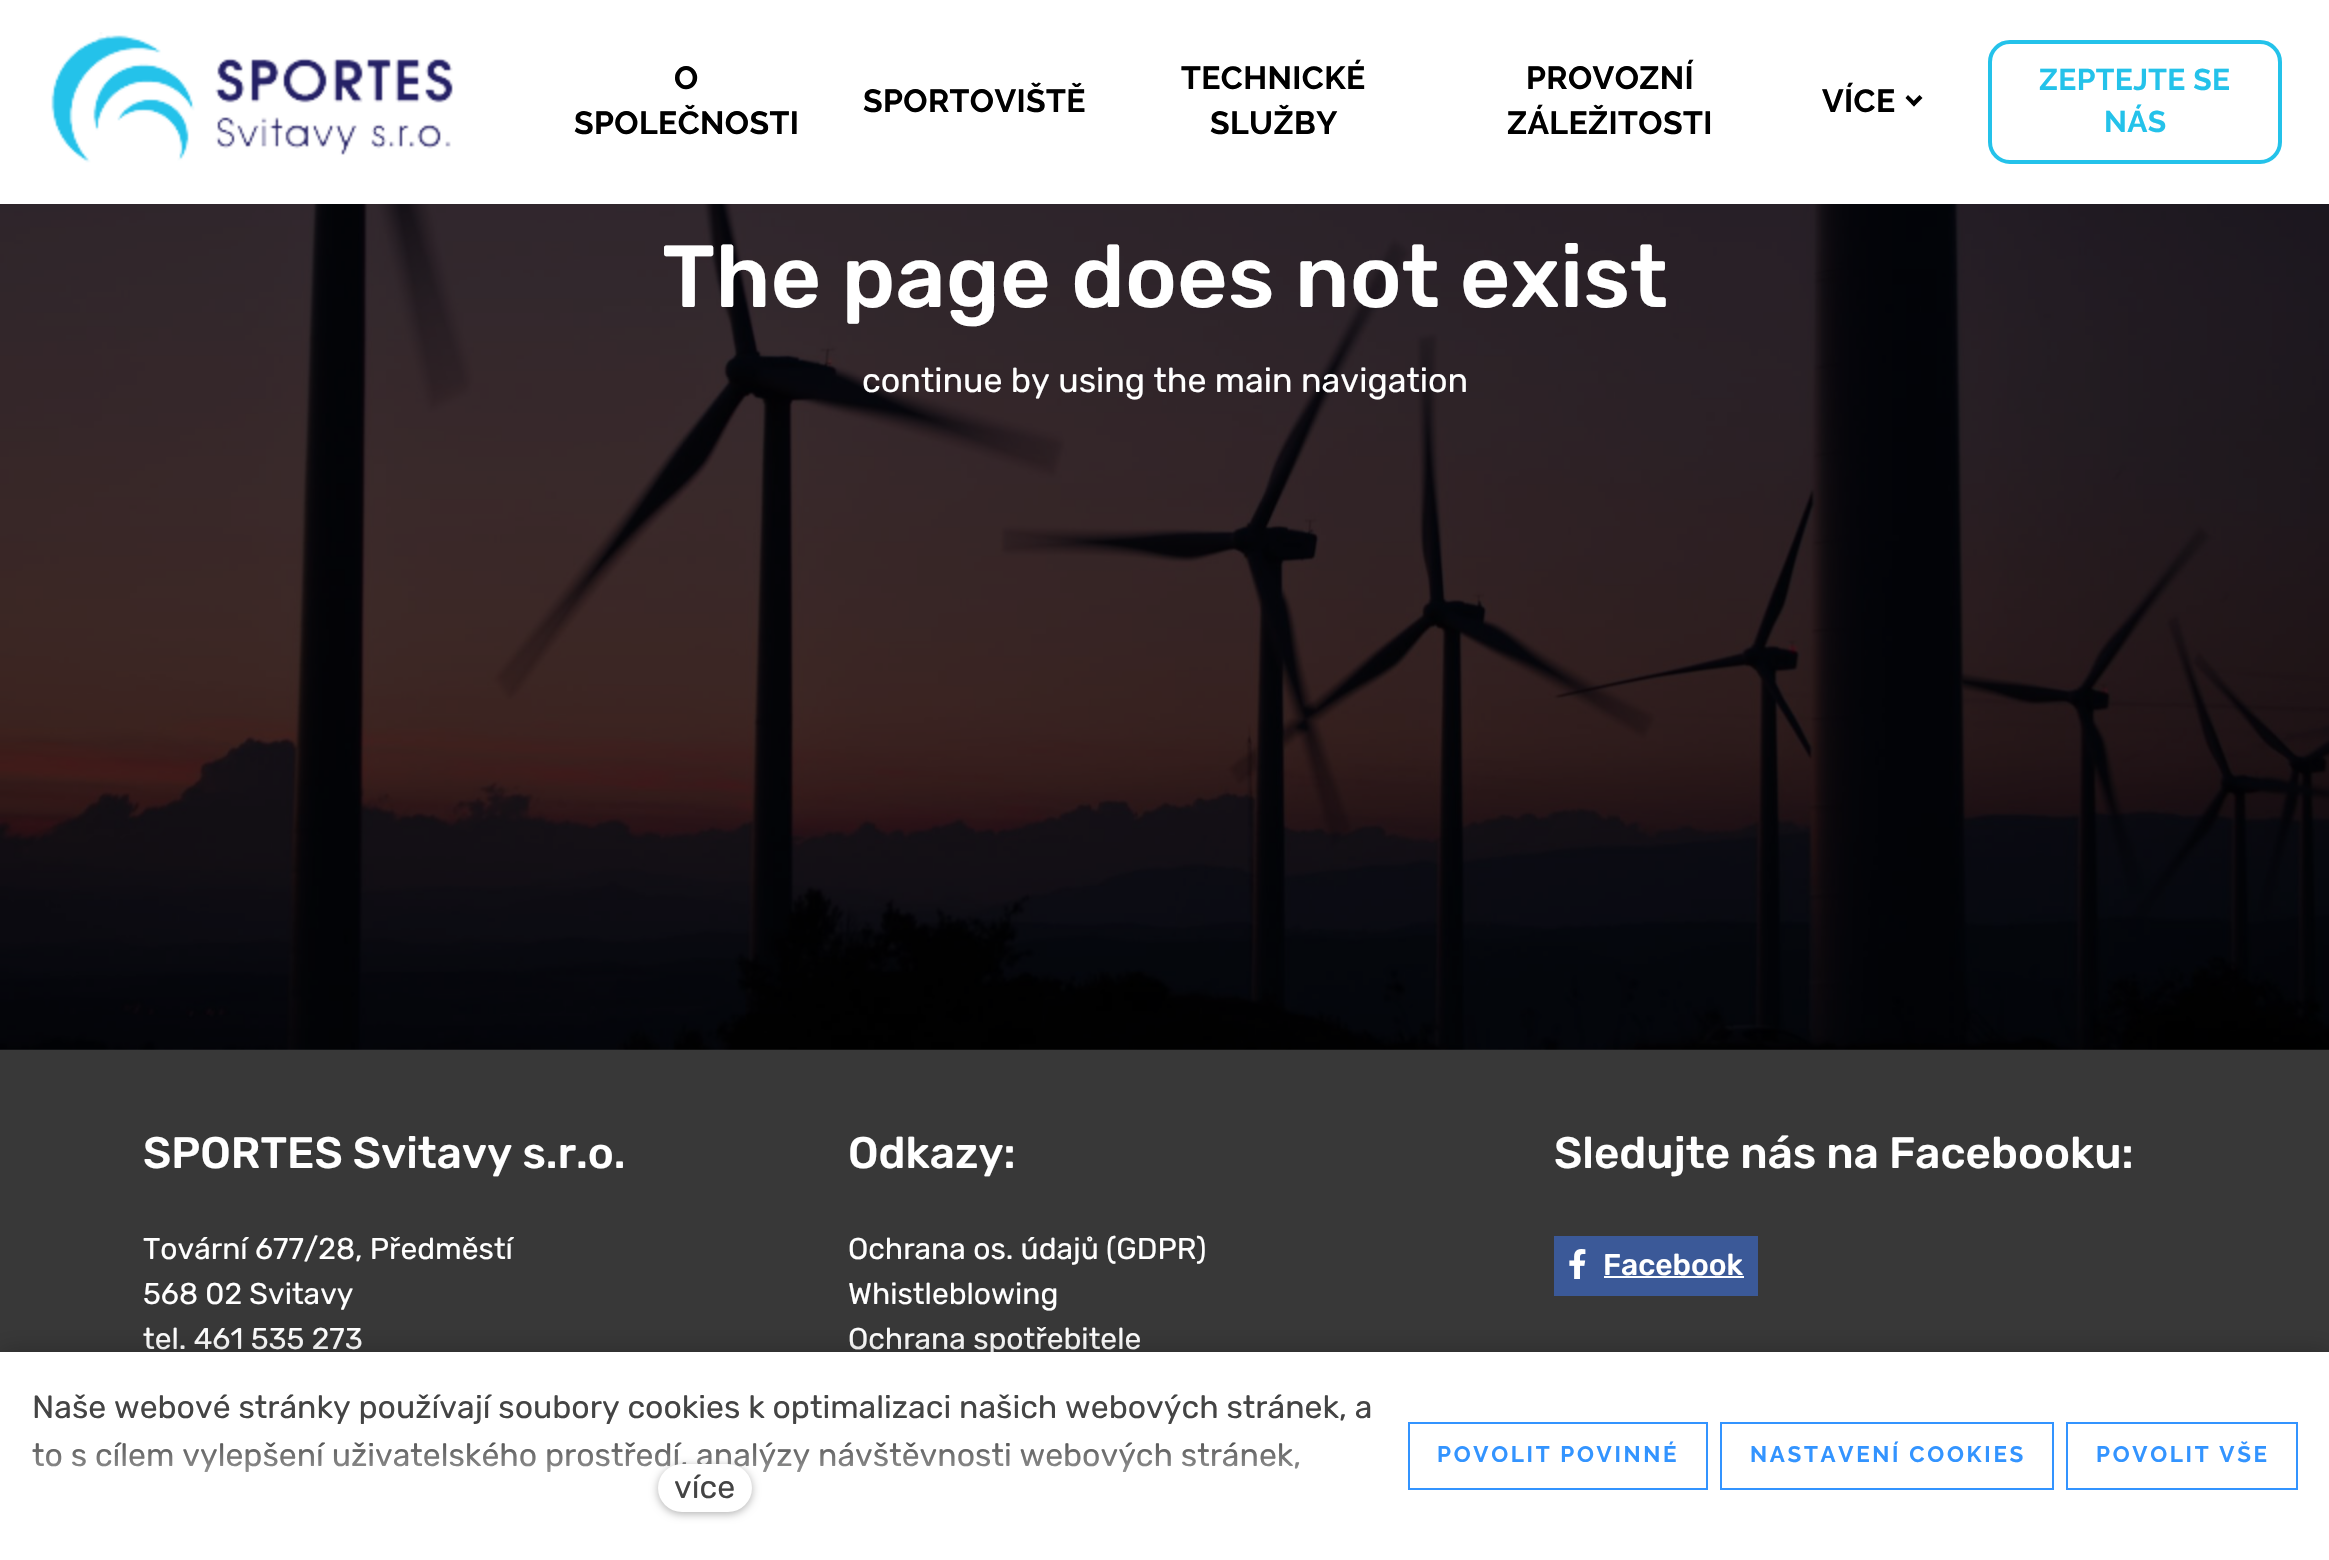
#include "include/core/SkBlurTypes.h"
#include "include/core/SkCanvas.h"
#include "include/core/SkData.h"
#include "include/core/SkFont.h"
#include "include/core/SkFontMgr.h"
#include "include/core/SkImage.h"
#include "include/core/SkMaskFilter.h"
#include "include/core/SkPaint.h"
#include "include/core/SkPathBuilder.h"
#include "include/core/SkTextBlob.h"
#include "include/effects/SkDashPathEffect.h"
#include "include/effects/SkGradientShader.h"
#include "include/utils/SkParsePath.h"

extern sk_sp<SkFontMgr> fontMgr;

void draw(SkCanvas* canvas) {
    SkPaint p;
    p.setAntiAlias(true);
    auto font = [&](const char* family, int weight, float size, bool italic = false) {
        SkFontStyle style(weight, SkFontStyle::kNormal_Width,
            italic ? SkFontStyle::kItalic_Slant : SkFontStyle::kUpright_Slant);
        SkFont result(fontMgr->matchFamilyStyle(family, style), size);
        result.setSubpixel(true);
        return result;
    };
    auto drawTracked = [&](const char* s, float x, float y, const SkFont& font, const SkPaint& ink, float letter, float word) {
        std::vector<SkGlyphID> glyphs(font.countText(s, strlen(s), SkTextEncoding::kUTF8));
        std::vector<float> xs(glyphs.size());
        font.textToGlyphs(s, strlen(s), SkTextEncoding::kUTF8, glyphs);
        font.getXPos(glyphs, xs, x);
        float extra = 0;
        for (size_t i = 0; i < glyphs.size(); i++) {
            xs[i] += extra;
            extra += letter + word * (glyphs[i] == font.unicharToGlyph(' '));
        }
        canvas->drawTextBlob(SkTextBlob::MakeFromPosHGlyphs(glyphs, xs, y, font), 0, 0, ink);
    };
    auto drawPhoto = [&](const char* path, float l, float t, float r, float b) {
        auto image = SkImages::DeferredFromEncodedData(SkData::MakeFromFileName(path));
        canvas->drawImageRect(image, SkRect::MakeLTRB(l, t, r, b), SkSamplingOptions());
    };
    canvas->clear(0xFFFFFFFF);
    drawPhoto("media/1.png", 51, 32, 453, 163);
    auto font1 = font("Raleway", 700, 32);
    p.setColor(0xFF000000);
    {
        const struct { const char* s; float x, y; } items[] = {
            {"O", 674, 89},
            {"SPOLEČNOSTI", 574, 134},
            {"SPORTOVIŠTĚ", 863, 112},
            {"TECHNICKÉ", 1181, 89},
            {"SLUŽBY", 1210, 134},
            {"PROVOZNÍ", 1526, 89},
            {"ZÁLEŽITOSTI", 1507, 134},
            {"VÍCE", 1822, 112},
        };
        for (auto [s, x, y] : items) {
            drawTracked(s, x, y, font1, p, 0.4f, 0);
        }
    }
    canvas->drawPath(SkPathBuilder().moveTo(1919.5f, 95).lineTo(1922.5f, 98).lineTo(1914, 106.5f).lineTo(1911, 103.5f).close().detach(), p);
    canvas->drawPath(SkPathBuilder().moveTo(1908, 95).lineTo(1916.5f, 103.5f).lineTo(1914, 106.5f).lineTo(1905.5f, 98).close().detach(), p);
    p.setStyle(SkPaint::kStroke_Style);
    p.setStrokeWidth(4);
    p.setColor(0xFF24C2EA);
    canvas->drawRoundRect(SkRect::MakeLTRB(1990, 42, 2280, 162), 20, 20, p);
    auto font2 = font("Raleway", 700, 30);
    p.setStyle(SkPaint::kFill_Style);
    drawTracked("ZEPTEJTE SE", 2039, 90, font2, p, 0.4f, 0);
    drawTracked("NÁS", 2104, 132, font2, p, 0.4f, 0);
    drawPhoto("media/2.png", 0, 204, 2329, 1050);
    auto font3 = font("Rubik", 500, 88);
    p.setColor(0xFFFFFFFF);
    canvas->drawString("The page does not exist", 662, 307, font3, p);
    auto font4 = font("Rubik", 400, 34);
    canvas->drawString("continue by using the main navigation", 862, 392, font4, p);
    p.setColor(0xFF383838);
    canvas->drawRect(SkRect::MakeLTRB(0, 1050, 2329, 1352), p);
    auto font5 = font("Rubik", 500, 44);
    p.setColor(0xFFFFFFFF);
    canvas->drawString("SPORTES Svitavy s.r.o.", 143, 1168, font5, p);
    auto font6 = font("Rubik", 400, 30);
    {
        const struct { const char* s; float x, y; } items[] = {
            {"Tovární 677/28, Předměstí", 143, 1259},
            {"568 02 Svitavy", 143, 1304},
            {"tel. 461 535 273", 143, 1349},
        };
        for (auto [s, x, y] : items) {
            canvas->drawString(s, x, y, font6, p);
        }
    }
    canvas->drawString("Odkazy:", 848, 1168, font5, p);
    {
        const struct { const char* s; float x, y; } items[] = {
            {"Ochrana os. údajů (GDPR)", 848, 1259},
            {"Whistleblowing", 848, 1304},
            {"Ochrana spotřebitele", 848, 1349},
        };
        for (auto [s, x, y] : items) {
            canvas->drawString(s, x, y, font6, p);
        }
    }
    canvas->drawString("Sledujte nás na Facebooku:", 1554, 1168, font5, p);
    p.setColor(0xFF3B5998);
    canvas->drawRect(SkRect::MakeLTRB(1554, 1236, 1758, 1296), p);
    drawPhoto("media/3.png", 1569, 1249, 1586, 1279);
    auto font7 = font("Rubik", 500, 30);
    p.setColor(0xFFFFFFFF);
    canvas->drawString("Facebook", 1603, 1275, font7, p);
    canvas->drawRect(SkRect::MakeLTRB(1604, 1276, 1744, 1278), p);
    p.setColor(0x40000000);
    p.setMaskFilter(SkMaskFilter::MakeBlur(kNormal_SkBlurStyle, 12));
    canvas->drawRect(SkRect::MakeLTRB(0, 1352, 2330, 1560), p);
    p.setMaskFilter(nullptr);
    p.setColor(0xFFFFFFFF);
    canvas->drawRect(SkRect::MakeLTRB(0, 1352, 2329, 1560), p);
    auto font8 = font("Rubik", 400, 32);
    p.setColor(0xFF444444);
    canvas->drawString("Naše webové stránky používají soubory cookies k optimalizaci našich webových stránek, a", 32, 1418, font8, p);
    canvas->drawString("to s cílem vylepšení uživatelského prostředí, analýzy návštěvnosti webových stránek,", 32, 1466, font8, p);
    {
        const SkColor colors[] = {0xFFFFFFFF, 0x00FFFFFF};
        const float stops[] = {0, 1};
        const SkPoint ends[] = {{704, 1528}, {704, 1432}};
        p.setShader(SkGradientShader::MakeLinear(ends, colors, stops, 2, SkTileMode::kClamp));
        p.setAlpha(255);
    }
    canvas->drawRect(SkRect::MakeLTRB(32, 1442, 1300, 1473), p);
    p.setShader(nullptr);
    p.setColor(0x4D000000);
    p.setMaskFilter(SkMaskFilter::MakeBlur(kNormal_SkBlurStyle, 4));
    canvas->drawRoundRect(SkRect::MakeLTRB(658, 1466, 752, 1514), 24, 24, p);
    p.setMaskFilter(nullptr);
    p.setColor(0xFFFFFFFF);
    canvas->drawRoundRect(SkRect::MakeLTRB(658, 1464, 752, 1512), 24, 24, p);
    p.setColor(0xFF444444);
    canvas->drawString("více", 674, 1498, font8, p);
    p.setStyle(SkPaint::kStroke_Style);
    p.setStrokeWidth(2);
    p.setColor(0xFF3394FF);
    canvas->drawRect(SkRect::MakeLTRB(1409, 1423, 1707, 1489), p);
    auto font9 = font("Raleway", 700, 22.4f);
    p.setStyle(SkPaint::kFill_Style);
    drawTracked("POVOLIT POVINNÉ", 1437, 1462, font9, p, 2.7f, 0);
    p.setStyle(SkPaint::kStroke_Style);
    canvas->drawRect(SkRect::MakeLTRB(1721, 1423, 2053, 1489), p);
    p.setStyle(SkPaint::kFill_Style);
    drawTracked("NASTAVENÍ COOKIES", 1750, 1462, font9, p, 2.7f, 0);
    p.setStyle(SkPaint::kStroke_Style);
    canvas->drawRect(SkRect::MakeLTRB(2067, 1423, 2297, 1489), p);
    p.setStyle(SkPaint::kFill_Style);
    drawTracked("POVOLIT VŠE", 2096, 1462, font9, p, 2.7f, 0);
}
